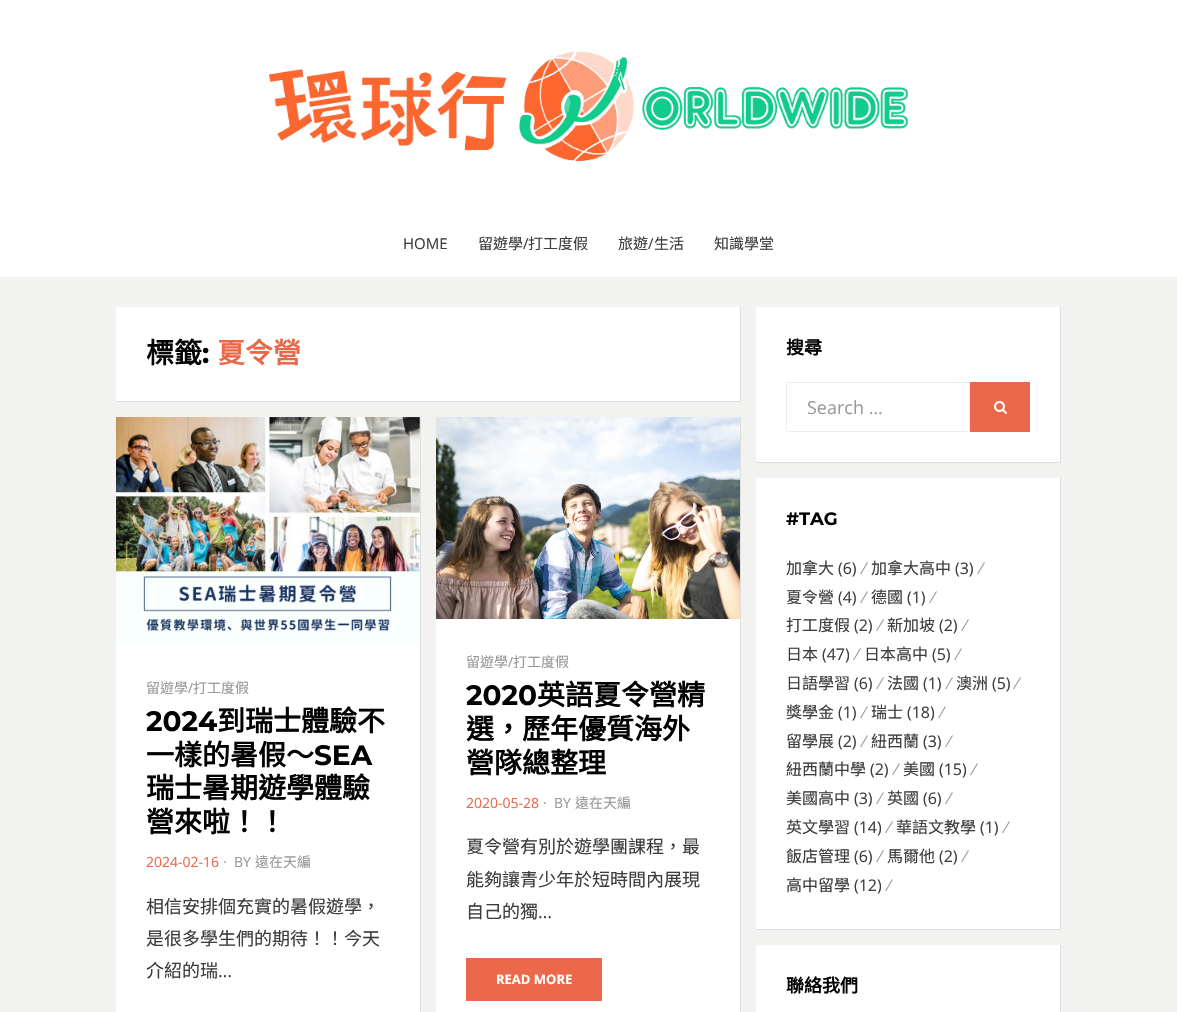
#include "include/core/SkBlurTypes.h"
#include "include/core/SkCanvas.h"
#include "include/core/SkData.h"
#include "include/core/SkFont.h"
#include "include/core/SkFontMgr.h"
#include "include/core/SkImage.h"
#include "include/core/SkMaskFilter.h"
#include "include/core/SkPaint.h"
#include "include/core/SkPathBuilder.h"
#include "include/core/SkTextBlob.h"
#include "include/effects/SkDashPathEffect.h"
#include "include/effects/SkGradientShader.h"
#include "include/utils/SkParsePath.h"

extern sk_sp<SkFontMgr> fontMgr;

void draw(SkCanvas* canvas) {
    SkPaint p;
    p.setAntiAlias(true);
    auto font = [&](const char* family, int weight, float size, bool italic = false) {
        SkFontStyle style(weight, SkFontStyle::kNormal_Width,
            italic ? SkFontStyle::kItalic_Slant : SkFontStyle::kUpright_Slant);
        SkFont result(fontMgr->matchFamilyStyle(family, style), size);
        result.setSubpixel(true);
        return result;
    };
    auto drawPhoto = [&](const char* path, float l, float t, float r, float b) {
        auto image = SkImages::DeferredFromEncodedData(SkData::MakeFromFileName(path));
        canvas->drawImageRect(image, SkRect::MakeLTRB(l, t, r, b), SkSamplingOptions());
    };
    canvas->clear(0xFFF2F2F0);
    p.setColor(0xFFFFFFFF);
    canvas->drawRect(SkRect::MakeLTRB(0, 0, 1177, 277), p);
    drawPhoto("media/1.png", 269, 51, 908, 161);
    auto font1 = font("Open Sans", 400, 15);
    p.setColor(0xFF3D3D3D);
    canvas->drawString("HOME", 403, 249, font1, p);
    auto font2 = font("Noto Sans CJK TC", 400, 15);
    canvas->drawString("留遊學", 478, 249, font2, p);
    canvas->drawString("/", 523, 249, font1, p);
    canvas->drawString("打工度假", 528, 249, font2, p);
    canvas->drawString("旅遊", 618, 249, font2, p);
    canvas->drawString("/", 648, 249, font1, p);
    canvas->drawString("生活", 654, 249, font2, p);
    canvas->drawString("知識學堂", 714, 249, font2, p);
    {
        const struct { float l, t, r, b; SkColor color; } items[] = {
            {116, 307, 740, 401, 0xFFFFFFFF},
            {740, 307, 741, 402, 0xFFDFDFDD},
            {116, 401, 741, 402, 0xFFDFDFDD},
        };
        for (auto [l, t, r, b, color] : items) {
            p.setColor(color);
            canvas->drawRect(SkRect::MakeLTRB(l, t, r, b), p);
        }
    }
    auto font3 = font("Noto Sans CJK TC", 700, 28);
    p.setColor(0xFF020202);
    canvas->drawString("標籤", 146, 363, font3, p);
    auto font4 = font("Montserrat", 700, 28);
    canvas->drawString(":", 202, 363, font4, p);
    p.setColor(0xFFEB684B);
    canvas->drawString("夏令營", 217, 363, font3, p);
    p.setColor(0xFFFFFFFF);
    canvas->drawRect(SkRect::MakeLTRB(116, 645, 420, 1012), p);
    p.setColor(0xFFDFDFDD);
    canvas->drawRect(SkRect::MakeLTRB(420, 417, 421, 1012), p);
    drawPhoto("media/2.png", 116, 417, 420, 645);
    auto font5 = font("Noto Sans CJK TC", 400, 14);
    p.setColor(0xFF999999);
    canvas->drawString("留遊學", 146, 693, font5, p);
    auto font6 = font("Open Sans", 400, 14);
    canvas->drawString("/", 188, 693, font6, p);
    canvas->drawString("打工度假", 193, 693, font5, p);
    p.setColor(0xFF020202);
    canvas->drawString("2024", 146, 731, font4, p);
    canvas->drawString("到瑞士體驗不", 217, 731, font3, p);
    canvas->drawString("一樣的暑假～", 146, 765, font3, p);
    canvas->drawString("SEA", 314, 765, font4, p);
    canvas->drawString("瑞士暑期遊學體驗", 146, 798, font3, p);
    canvas->drawString("營來啦！！", 146, 832, font3, p);
    p.setColor(0xFFEB684B);
    canvas->drawString("2024-02-16", 146, 867, font6, p);
    p.setColor(0xFF999999);
    canvas->drawString("·", 223, 867, font6, p);
    canvas->drawString("BY", 234, 867, font6, p);
    canvas->drawString("遠在天編", 255, 867, font5, p);
    auto font7 = font("Noto Sans CJK TC", 400, 18);
    p.setColor(0xFF3D3D3D);
    {
        const struct { const char* s; float x, y; } items[] = {
            {"相信安排個充實的暑假遊學，", 146, 913},
            {"是很多學生們的期待！！今天", 146, 945},
            {"介紹的瑞", 146, 977},
        };
        for (auto [s, x, y] : items) {
            canvas->drawString(s, x, y, font7, p);
        }
    }
    auto font8 = font("Open Sans", 400, 18);
    canvas->drawString("…", 218, 977, font8, p);
    p.setColor(0xFFFFFFFF);
    canvas->drawRect(SkRect::MakeLTRB(436, 619, 740, 1012), p);
    p.setColor(0xFFDFDFDD);
    canvas->drawRect(SkRect::MakeLTRB(740, 417, 741, 1012), p);
    drawPhoto("media/3.png", 436, 417, 740, 619);
    p.setColor(0xFF999999);
    canvas->drawString("留遊學", 466, 667, font5, p);
    canvas->drawString("/", 508, 667, font6, p);
    canvas->drawString("打工度假", 513, 667, font5, p);
    p.setColor(0xFF020202);
    canvas->drawString("2020", 466, 705, font4, p);
    {
        const struct { const char* s; float x, y; } items[] = {
            {"英語夏令營精", 537, 705},
            {"選，歷年優質海外", 466, 739},
            {"營隊總整理", 466, 773},
        };
        for (auto [s, x, y] : items) {
            canvas->drawString(s, x, y, font3, p);
        }
    }
    p.setColor(0xFFEB684B);
    canvas->drawString("2020-05-28", 466, 808, font6, p);
    p.setColor(0xFF999999);
    canvas->drawString("·", 543, 808, font6, p);
    canvas->drawString("BY", 554, 808, font6, p);
    canvas->drawString("遠在天編", 575, 808, font5, p);
    p.setColor(0xFF3D3D3D);
    {
        const struct { const char* s; float x, y; } items[] = {
            {"夏令營有別於遊學團課程，最", 466, 853},
            {"能夠讓青少年於短時間內展現", 466, 886},
            {"自己的獨", 466, 918},
        };
        for (auto [s, x, y] : items) {
            canvas->drawString(s, x, y, font7, p);
        }
    }
    canvas->drawString("…", 538, 918, font8, p);
    p.setColor(0xFFEB684B);
    canvas->drawRect(SkRect::MakeLTRB(466, 958, 602, 1001), p);
    auto font9 = font("Open Sans", 700, 13);
    p.setColor(0xFFFFFFFF);
    canvas->drawString("READ MORE", 496, 984, font9, p);
    {
        const struct { float l, t, r, b; SkColor color; } items[] = {
            {756, 307, 1060, 462, 0xFFFFFFFF},
            {1060, 307, 1061, 463, 0xFFDFDFDD},
            {756, 462, 1061, 463, 0xFFDFDFDD},
        };
        for (auto [l, t, r, b, color] : items) {
            p.setColor(color);
            canvas->drawRect(SkRect::MakeLTRB(l, t, r, b), p);
        }
    }
    auto font10 = font("Noto Sans CJK TC", 700, 18);
    p.setColor(0xFF020202);
    canvas->drawString("搜尋", 786, 354, font10, p);
    p.setStyle(SkPaint::kStroke_Style);
    p.setStrokeWidth(1);
    p.setColor(0xFFEEEEEE);
    canvas->drawRoundRect(SkRect::MakeLTRB(786.5f, 382.5f, 969.5f, 431.5f), 1.5f, 1.5f, p);
    p.setStyle(SkPaint::kFill_Style);
    p.setColor(0xFF999999);
    canvas->drawString("Search …", 807, 414, font8, p);
    p.setColor(0xFFEB684B);
    canvas->drawRect(SkRect::MakeLTRB(970, 382, 1030, 432), p);
    drawPhoto("media/4.png", 994, 401, 1007, 414);
    {
        const struct { float l, t, r, b; SkColor color; } items[] = {
            {756, 478, 1060, 929, 0xFFFFFFFF},
            {1060, 478, 1061, 930, 0xFFDFDFDD},
            {756, 929, 1061, 930, 0xFFDFDFDD},
        };
        for (auto [l, t, r, b, color] : items) {
            p.setColor(color);
            canvas->drawRect(SkRect::MakeLTRB(l, t, r, b), p);
        }
    }
    auto font11 = font("Montserrat", 700, 18);
    p.setColor(0xFF020202);
    canvas->drawString("#TAG", 786, 525, font11, p);
    auto font12 = font("Noto Sans CJK TC", 400, 16);
    p.setColor(0xFF3D3D3D);
    canvas->drawString("加拿大", 786, 574, font12, p);
    auto font13 = font("Open Sans", 400, 16);
    canvas->drawString("(6)", 838, 574, font13, p);
    p.setColor(0xFF999999);
    canvas->drawString("⁄", 863, 574, font13, p);
    p.setColor(0xFF3D3D3D);
    canvas->drawString("加拿大高中", 871, 574, font12, p);
    canvas->drawString("(3)", 955, 574, font13, p);
    p.setColor(0xFF999999);
    canvas->drawString("⁄", 980, 574, font13, p);
    p.setColor(0xFF3D3D3D);
    canvas->drawString("夏令營", 786, 603, font12, p);
    canvas->drawString("(4)", 838, 603, font13, p);
    p.setColor(0xFF999999);
    canvas->drawString("⁄", 863, 603, font13, p);
    p.setColor(0xFF3D3D3D);
    canvas->drawString("德國", 871, 603, font12, p);
    canvas->drawString("(1)", 907, 603, font13, p);
    p.setColor(0xFF999999);
    canvas->drawString("⁄", 932, 603, font13, p);
    p.setColor(0xFF3D3D3D);
    canvas->drawString("打工度假", 786, 631, font12, p);
    canvas->drawString("(2)", 854, 631, font13, p);
    p.setColor(0xFF999999);
    canvas->drawString("⁄", 879, 631, font13, p);
    p.setColor(0xFF3D3D3D);
    canvas->drawString("新加坡", 887, 631, font12, p);
    canvas->drawString("(2)", 939, 631, font13, p);
    p.setColor(0xFF999999);
    canvas->drawString("⁄", 964, 631, font13, p);
    p.setColor(0xFF3D3D3D);
    canvas->drawString("日本", 786, 660, font12, p);
    canvas->drawString("(47)", 822, 660, font13, p);
    p.setColor(0xFF999999);
    canvas->drawString("⁄", 856, 660, font13, p);
    p.setColor(0xFF3D3D3D);
    canvas->drawString("日本高中", 864, 660, font12, p);
    canvas->drawString("(5)", 932, 660, font13, p);
    p.setColor(0xFF999999);
    canvas->drawString("⁄", 957, 660, font13, p);
    p.setColor(0xFF3D3D3D);
    canvas->drawString("日語學習", 786, 689, font12, p);
    canvas->drawString("(6)", 854, 689, font13, p);
    p.setColor(0xFF999999);
    canvas->drawString("⁄", 879, 689, font13, p);
    p.setColor(0xFF3D3D3D);
    canvas->drawString("法國", 887, 689, font12, p);
    canvas->drawString("(1)", 923, 689, font13, p);
    p.setColor(0xFF999999);
    canvas->drawString("⁄", 948, 689, font13, p);
    p.setColor(0xFF3D3D3D);
    canvas->drawString("澳洲", 956, 689, font12, p);
    canvas->drawString("(5)", 992, 689, font13, p);
    p.setColor(0xFF999999);
    canvas->drawString("⁄", 1016, 689, font13, p);
    p.setColor(0xFF3D3D3D);
    canvas->drawString("獎學金", 786, 718, font12, p);
    canvas->drawString("(1)", 838, 718, font13, p);
    p.setColor(0xFF999999);
    canvas->drawString("⁄", 863, 718, font13, p);
    p.setColor(0xFF3D3D3D);
    canvas->drawString("瑞士", 871, 718, font12, p);
    canvas->drawString("(18)", 907, 718, font13, p);
    p.setColor(0xFF999999);
    canvas->drawString("⁄", 941, 718, font13, p);
    p.setColor(0xFF3D3D3D);
    canvas->drawString("留學展", 786, 747, font12, p);
    canvas->drawString("(2)", 838, 747, font13, p);
    p.setColor(0xFF999999);
    canvas->drawString("⁄", 863, 747, font13, p);
    p.setColor(0xFF3D3D3D);
    canvas->drawString("紐西蘭", 871, 747, font12, p);
    canvas->drawString("(3)", 923, 747, font13, p);
    p.setColor(0xFF999999);
    canvas->drawString("⁄", 948, 747, font13, p);
    p.setColor(0xFF3D3D3D);
    canvas->drawString("紐西蘭中學", 786, 775, font12, p);
    canvas->drawString("(2)", 870, 775, font13, p);
    p.setColor(0xFF999999);
    canvas->drawString("⁄", 895, 775, font13, p);
    p.setColor(0xFF3D3D3D);
    canvas->drawString("美國", 903, 775, font12, p);
    canvas->drawString("(15)", 939, 775, font13, p);
    p.setColor(0xFF999999);
    canvas->drawString("⁄", 973, 775, font13, p);
    p.setColor(0xFF3D3D3D);
    canvas->drawString("美國高中", 786, 804, font12, p);
    canvas->drawString("(3)", 854, 804, font13, p);
    p.setColor(0xFF999999);
    canvas->drawString("⁄", 879, 804, font13, p);
    p.setColor(0xFF3D3D3D);
    canvas->drawString("英國", 887, 804, font12, p);
    canvas->drawString("(6)", 923, 804, font13, p);
    p.setColor(0xFF999999);
    canvas->drawString("⁄", 948, 804, font13, p);
    p.setColor(0xFF3D3D3D);
    canvas->drawString("英文學習", 786, 833, font12, p);
    canvas->drawString("(14)", 854, 833, font13, p);
    p.setColor(0xFF999999);
    canvas->drawString("⁄", 888, 833, font13, p);
    p.setColor(0xFF3D3D3D);
    canvas->drawString("華語文教學", 896, 833, font12, p);
    canvas->drawString("(1)", 980, 833, font13, p);
    p.setColor(0xFF999999);
    canvas->drawString("⁄", 1005, 833, font13, p);
    p.setColor(0xFF3D3D3D);
    canvas->drawString("飯店管理", 786, 862, font12, p);
    canvas->drawString("(6)", 854, 862, font13, p);
    p.setColor(0xFF999999);
    canvas->drawString("⁄", 879, 862, font13, p);
    p.setColor(0xFF3D3D3D);
    canvas->drawString("馬爾他", 887, 862, font12, p);
    canvas->drawString("(2)", 939, 862, font13, p);
    p.setColor(0xFF999999);
    canvas->drawString("⁄", 964, 862, font13, p);
    p.setColor(0xFF3D3D3D);
    canvas->drawString("高中留學", 786, 891, font12, p);
    canvas->drawString("(12)", 854, 891, font13, p);
    p.setColor(0xFF999999);
    canvas->drawString("⁄", 888, 891, font13, p);
    p.setColor(0xFFFFFFFF);
    canvas->drawRect(SkRect::MakeLTRB(756, 945, 1060, 1012), p);
    p.setColor(0xFFDFDFDD);
    canvas->drawRect(SkRect::MakeLTRB(1060, 945, 1061, 1012), p);
    p.setColor(0xFF020202);
    canvas->drawString("聯絡我們", 786, 992, font10, p);
}
